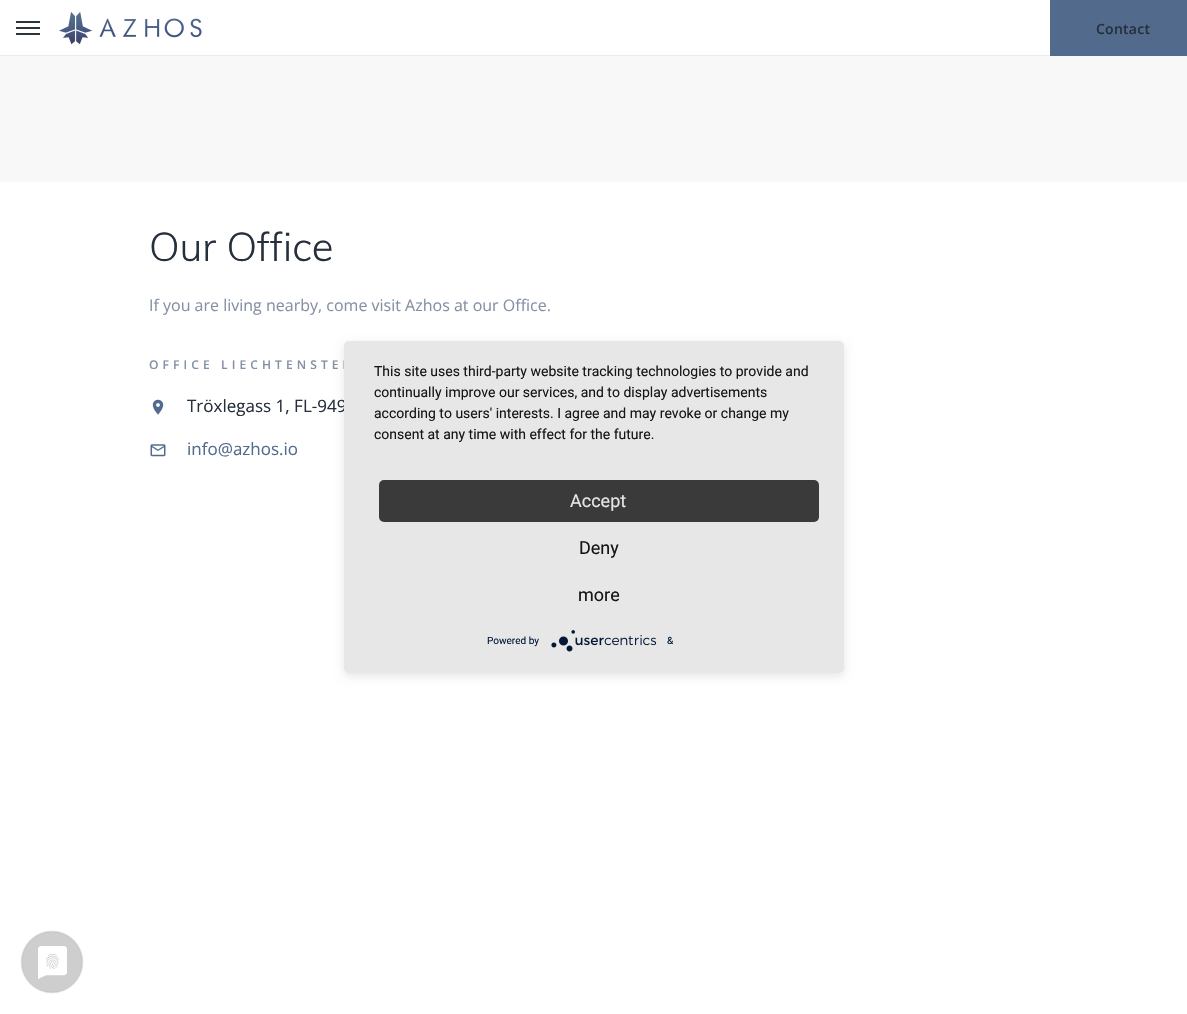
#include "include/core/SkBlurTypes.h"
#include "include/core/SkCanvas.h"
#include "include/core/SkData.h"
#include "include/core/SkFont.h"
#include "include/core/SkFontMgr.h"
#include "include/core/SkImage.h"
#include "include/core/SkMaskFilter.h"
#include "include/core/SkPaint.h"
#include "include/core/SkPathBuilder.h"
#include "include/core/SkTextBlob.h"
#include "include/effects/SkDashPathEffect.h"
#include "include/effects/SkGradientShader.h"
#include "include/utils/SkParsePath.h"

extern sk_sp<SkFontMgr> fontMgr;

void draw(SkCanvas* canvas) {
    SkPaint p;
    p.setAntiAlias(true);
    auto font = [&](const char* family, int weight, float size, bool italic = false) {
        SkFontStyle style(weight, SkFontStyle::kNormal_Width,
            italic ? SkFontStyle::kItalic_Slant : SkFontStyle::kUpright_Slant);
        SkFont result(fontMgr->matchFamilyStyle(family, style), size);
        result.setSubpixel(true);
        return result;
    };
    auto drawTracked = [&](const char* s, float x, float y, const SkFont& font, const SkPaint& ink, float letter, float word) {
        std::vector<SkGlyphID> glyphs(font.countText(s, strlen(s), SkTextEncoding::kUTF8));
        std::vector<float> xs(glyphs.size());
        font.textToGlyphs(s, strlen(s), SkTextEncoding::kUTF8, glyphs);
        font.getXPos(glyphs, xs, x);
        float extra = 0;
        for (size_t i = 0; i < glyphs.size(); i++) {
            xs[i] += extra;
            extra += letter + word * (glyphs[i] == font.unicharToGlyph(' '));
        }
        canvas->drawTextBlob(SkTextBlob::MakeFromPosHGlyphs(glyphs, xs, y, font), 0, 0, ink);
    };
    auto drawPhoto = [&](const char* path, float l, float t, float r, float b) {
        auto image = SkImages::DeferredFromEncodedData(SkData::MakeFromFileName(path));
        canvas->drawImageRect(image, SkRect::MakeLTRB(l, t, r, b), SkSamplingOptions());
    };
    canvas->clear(0xFFFFFFFF);
    {
        const struct { float l, t, r, b; SkColor color; } items[] = {
            {0, 55, 1050, 56, 0xFFEBEBEB},
            {16, 27, 40, 29, 0xFF2C343B},
            {16, 21, 40, 23, 0xFF2C343B},
            {16, 33, 40, 35, 0xFF2C343B},
        };
        for (auto [l, t, r, b, color] : items) {
            p.setColor(color);
            canvas->drawRect(SkRect::MakeLTRB(l, t, r, b), p);
        }
    }
    drawPhoto("media/1.png", 59, 12, 202, 44);
    p.setColor(0xFF526B8D);
    canvas->drawRect(SkRect::MakeLTRB(1050, 0, 1187, 56), p);
    auto font1 = font("Open Sans", 600, 14);
    p.setColor(0xFF262F3C);
    drawTracked("Contact", 1096, 34, font1, p, 0.25f, 0);
    p.setColor(0xFFF9F8F8);
    canvas->drawRect(SkRect::MakeLTRB(0, 56, 1187, 182), p);
    auto font2 = font("Muli", 300, 40);
    p.setColor(0xFF262F3C);
    canvas->drawString("Our Office", 149, 261, font2, p);
    auto font3 = font("Open Sans", 400, 16);
    p.setColor(0xFF8491A5);
    canvas->drawString("If you are living nearby, come visit Azhos at our Office.", 149, 311, font3, p);
    auto font4 = font("Open Sans", 600, 12);
    drawTracked("OFFICE LIECHTENSTEI", 149, 369, font4, p, 4.1f, 0);
    drawPhoto("media/2.png", 152, 399, 164, 415);
    auto font5 = font("Open Sans", 400, 17);
    p.setColor(0xFF262F3C);
    canvas->drawString("Tröxlegass 1, FL-949", 187, 412, font5, p);
    drawPhoto("media/3.png", 150, 444, 166, 457);
    p.setColor(0xFF526B8D);
    canvas->drawString("info@azhos.io", 187, 455, font5, p);
    p.setColor(0x1A000000);
    p.setMaskFilter(SkMaskFilter::MakeBlur(kNormal_SkBlurStyle, 5));
    canvas->drawRoundRect(SkRect::MakeLTRB(344, 344, 844, 676), 5, 5, p);
    p.setMaskFilter(nullptr);
    p.setColor(0xFFE7E7E7);
    canvas->drawRoundRect(SkRect::MakeLTRB(344, 341, 844, 673), 5, 5, p);
    auto font6 = font("Roboto", 400, 14);
    p.setColor(0xFF161616);
    {
        const struct { const char* s; float x, y; } items[] = {
            {"This site uses third-party website tracking technologies to provide and", 374, 376},
            {"continually improve our services, and to display advertisements", 374, 397},
            {"according to users' interests. I agree and may revoke or change my", 374, 418},
            {"consent at any time with effect for the future.", 374, 439},
        };
        for (auto [s, x, y] : items) {
            canvas->drawString(s, x, y, font6, p);
        }
    }
    p.setColor(0xFF3A3A3A);
    canvas->drawRoundRect(SkRect::MakeLTRB(379, 480, 819, 522), 5, 5, p);
    auto font7 = font("Roboto", 400, 18);
    p.setColor(0xFFE6E6E6);
    canvas->drawString("Accept", 570, 507, font7, p);
    p.setColor(0xFF161616);
    canvas->drawString("Deny", 579, 554, font7, p);
    canvas->drawString("more", 578, 601, font7, p);
    auto font8 = font("Roboto", 400, 10);
    p.setColor(0xFF021836);
    canvas->drawString("Powered by", 487, 644, font8, p);
    drawPhoto("media/4.png", 551, 630, 657, 652);
    canvas->drawString("&", 667, 644, font8, p);
    drawPhoto("media/5.png", 20, 930, 84, 994);
}
